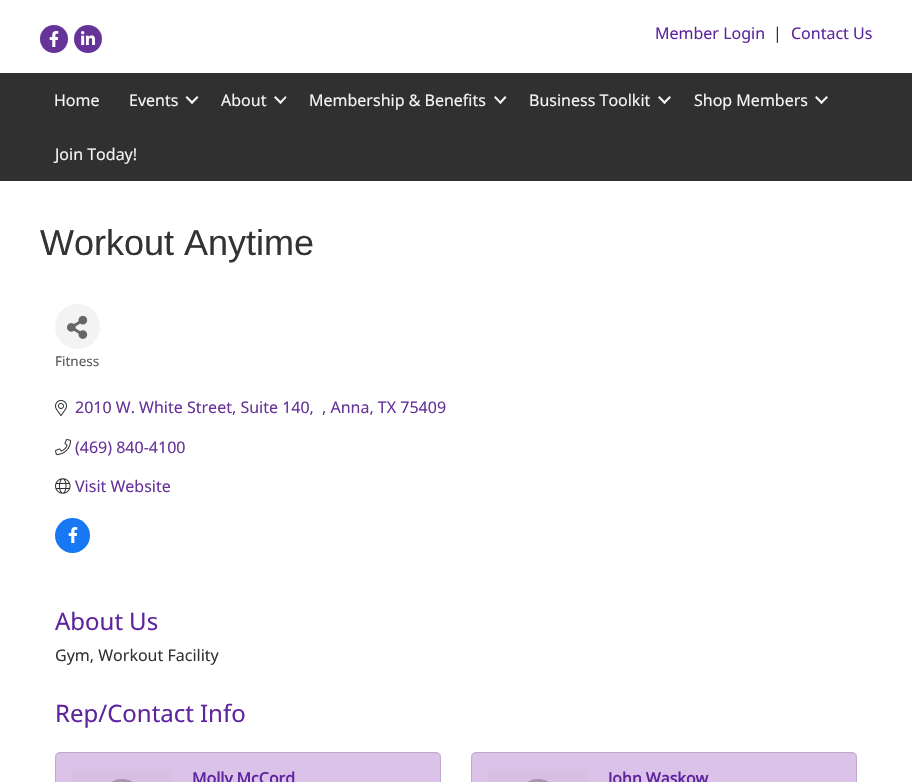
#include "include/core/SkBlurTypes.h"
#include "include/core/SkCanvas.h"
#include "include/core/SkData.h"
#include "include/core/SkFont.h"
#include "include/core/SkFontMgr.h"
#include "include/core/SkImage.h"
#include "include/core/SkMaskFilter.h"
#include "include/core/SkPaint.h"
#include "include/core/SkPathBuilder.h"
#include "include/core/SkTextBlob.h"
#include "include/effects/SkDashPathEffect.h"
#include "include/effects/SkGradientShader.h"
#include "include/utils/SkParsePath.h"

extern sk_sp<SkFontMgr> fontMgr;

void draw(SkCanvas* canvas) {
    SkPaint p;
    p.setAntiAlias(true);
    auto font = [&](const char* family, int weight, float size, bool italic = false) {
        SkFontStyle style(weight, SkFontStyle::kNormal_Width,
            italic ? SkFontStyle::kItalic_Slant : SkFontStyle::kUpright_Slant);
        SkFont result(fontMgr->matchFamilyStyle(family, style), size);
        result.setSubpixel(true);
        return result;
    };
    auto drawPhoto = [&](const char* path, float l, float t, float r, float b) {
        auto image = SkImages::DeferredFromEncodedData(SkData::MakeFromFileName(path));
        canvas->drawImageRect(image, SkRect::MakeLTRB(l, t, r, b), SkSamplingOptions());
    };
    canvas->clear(0xFFFFFFFF);
    p.setColor(0xFF663399);
    canvas->drawCircle(54, 39, 14, p);
    drawPhoto("media/1.png", 49, 31, 59, 47);
    canvas->drawCircle(88, 39, 14, p);
    drawPhoto("media/2.png", 81, 31, 95, 45);
    auto font1 = font("Noto Sans", 400, 16);
    p.setColor(0xFF5F259F);
    canvas->drawString("Member Login", 655, 39, font1, p);
    p.setColor(0xFF333333);
    canvas->drawString("|", 773, 39, font1, p);
    p.setColor(0xFF5F259F);
    canvas->drawString("Contact Us", 791, 39, font1, p);
    p.setColor(0xFF303030);
    canvas->drawRect(SkRect::MakeLTRB(0, 73, 912, 181), p);
    p.setColor(0xFFF5F5F5);
    canvas->drawString("Home", 54, 106, font1, p);
    canvas->drawString("Events", 129, 106, font1, p);
    canvas->drawPath(SkPathBuilder().moveTo(197, 96).lineTo(198.5f, 97.5f).lineTo(192, 104).lineTo(190.5f, 102.5f).close().detach(), p);
    canvas->drawPath(SkPathBuilder().moveTo(187, 96).lineTo(193.5f, 102.5f).lineTo(192, 104).lineTo(185.5f, 97.5f).close().detach(), p);
    canvas->drawString("About", 221, 106, font1, p);
    canvas->drawPath(SkPathBuilder().moveTo(285.5f, 96).lineTo(286.5f, 97.5f).lineTo(280.5f, 104).lineTo(279, 102.5f).close().detach(), p);
    canvas->drawPath(SkPathBuilder().moveTo(275.5f, 96).lineTo(282, 102.5f).lineTo(280.5f, 104).lineTo(274, 97.5f).close().detach(), p);
    canvas->drawString("Membership & Benefits", 309, 106, font1, p);
    canvas->drawPath(SkPathBuilder().moveTo(505, 96).lineTo(506.5f, 97.5f).lineTo(500.5f, 104).lineTo(499, 102.5f).close().detach(), p);
    canvas->drawPath(SkPathBuilder().moveTo(495.5f, 96).lineTo(501.5f, 102.5f).lineTo(500.5f, 104).lineTo(494, 97.5f).close().detach(), p);
    canvas->drawString("Business Toolkit", 529, 106, font1, p);
    canvas->drawPath(SkPathBuilder().moveTo(669.5f, 96).lineTo(671, 97.5f).lineTo(664.5f, 104).lineTo(663, 102.5f).close().detach(), p);
    canvas->drawPath(SkPathBuilder().moveTo(659.5f, 96).lineTo(666, 102.5f).lineTo(664.5f, 104).lineTo(658, 97.5f).close().detach(), p);
    canvas->drawString("Shop Members", 694, 106, font1, p);
    canvas->drawPath(SkPathBuilder().moveTo(826.5f, 96).lineTo(828, 97.5f).lineTo(821.5f, 104).lineTo(820, 102.5f).close().detach(), p);
    canvas->drawPath(SkPathBuilder().moveTo(816.5f, 96).lineTo(823, 102.5f).lineTo(821.5f, 104).lineTo(815, 97.5f).close().detach(), p);
    canvas->drawString("Join Today!", 55, 160, font1, p);
    auto font2 = font("Liberation Sans", 400, 36);
    p.setColor(0xFF333333);
    canvas->drawString("Workout Anytime", 40, 255, font2, p);
    p.setColor(0xFFF3F3F3);
    canvas->drawCircle(77.5f, 326.5f, 22.5f, p);
    drawPhoto("media/3.png", 67, 315, 88, 339);
    auto font3 = font("Noto Sans", 400, 13.5f);
    p.setColor(0xFF595959);
    canvas->drawString("Fitness", 55, 366, font3, p);
    drawPhoto("media/4.png", 55, 400, 67, 416);
    p.setColor(0xFF663399);
    canvas->drawString("2010 W. White Street, Suite 140,", 75, 413, font1, p);
    canvas->drawString(", Anna, TX 75409", 322, 413, font1, p);
    drawPhoto("media/5.png", 55, 439, 71, 455);
    canvas->drawString("(469) 840-4100", 75, 453, font1, p);
    drawPhoto("media/6.png", 55, 478, 71, 494);
    canvas->drawString("Visit Website", 75, 492, font1, p);
    p.setColor(0xFF1877F2);
    canvas->drawCircle(72.5f, 535.5f, 17.5f, p);
    drawPhoto("media/7.png", 68, 527, 78, 543);
    auto font4 = font("Noto Sans Adlam", 400, 24);
    p.setColor(0xFF5F259F);
    canvas->drawString("About Us", 55, 630, font4, p);
    p.setColor(0xFF333333);
    canvas->drawString("Gym, Workout Facility", 55, 661, font1, p);
    p.setColor(0xFF5F259F);
    canvas->drawString("Rep/Contact Info", 55, 722, font4, p);
    p.setColor(0xFFDBC2E8);
    canvas->drawRoundRect(SkRect::MakeLTRB(55, 752, 441, 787), 5, 5, p);
    p.setStyle(SkPaint::kStroke_Style);
    p.setStrokeWidth(1);
    p.setColor(0x1F000000);
    canvas->drawRoundRect(SkRect::MakeLTRB(55.5f, 752.5f, 440.5f, 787.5f), 4.5f, 4.5f, p);
    p.setStyle(SkPaint::kFill_Style);
    p.setColor(0xFFD7BEE3);
    canvas->drawRect(SkRect::MakeLTRB(72, 769, 172, 782), p);
    drawPhoto("media/8.png", 111, 779, 133, 782);
    auto font5 = font("Noto Sans Adlam", 700, 16);
    p.setColor(0xFF5F259F);
    canvas->drawString("Molly McCord", 192, 784, font5, p);
    p.setColor(0xFFDBC2E8);
    canvas->drawRoundRect(SkRect::MakeLTRB(471, 752, 857, 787), 5, 5, p);
    p.setStyle(SkPaint::kStroke_Style);
    p.setColor(0x1F000000);
    canvas->drawRoundRect(SkRect::MakeLTRB(471.5f, 752.5f, 856.5f, 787.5f), 4.5f, 4.5f, p);
    p.setStyle(SkPaint::kFill_Style);
    p.setColor(0xFFD7BEE3);
    canvas->drawRect(SkRect::MakeLTRB(488, 769, 588, 782), p);
    drawPhoto("media/8.png", 527, 779, 549, 782);
    p.setColor(0xFF5F259F);
    canvas->drawString("John Waskow", 608, 784, font5, p);
}
